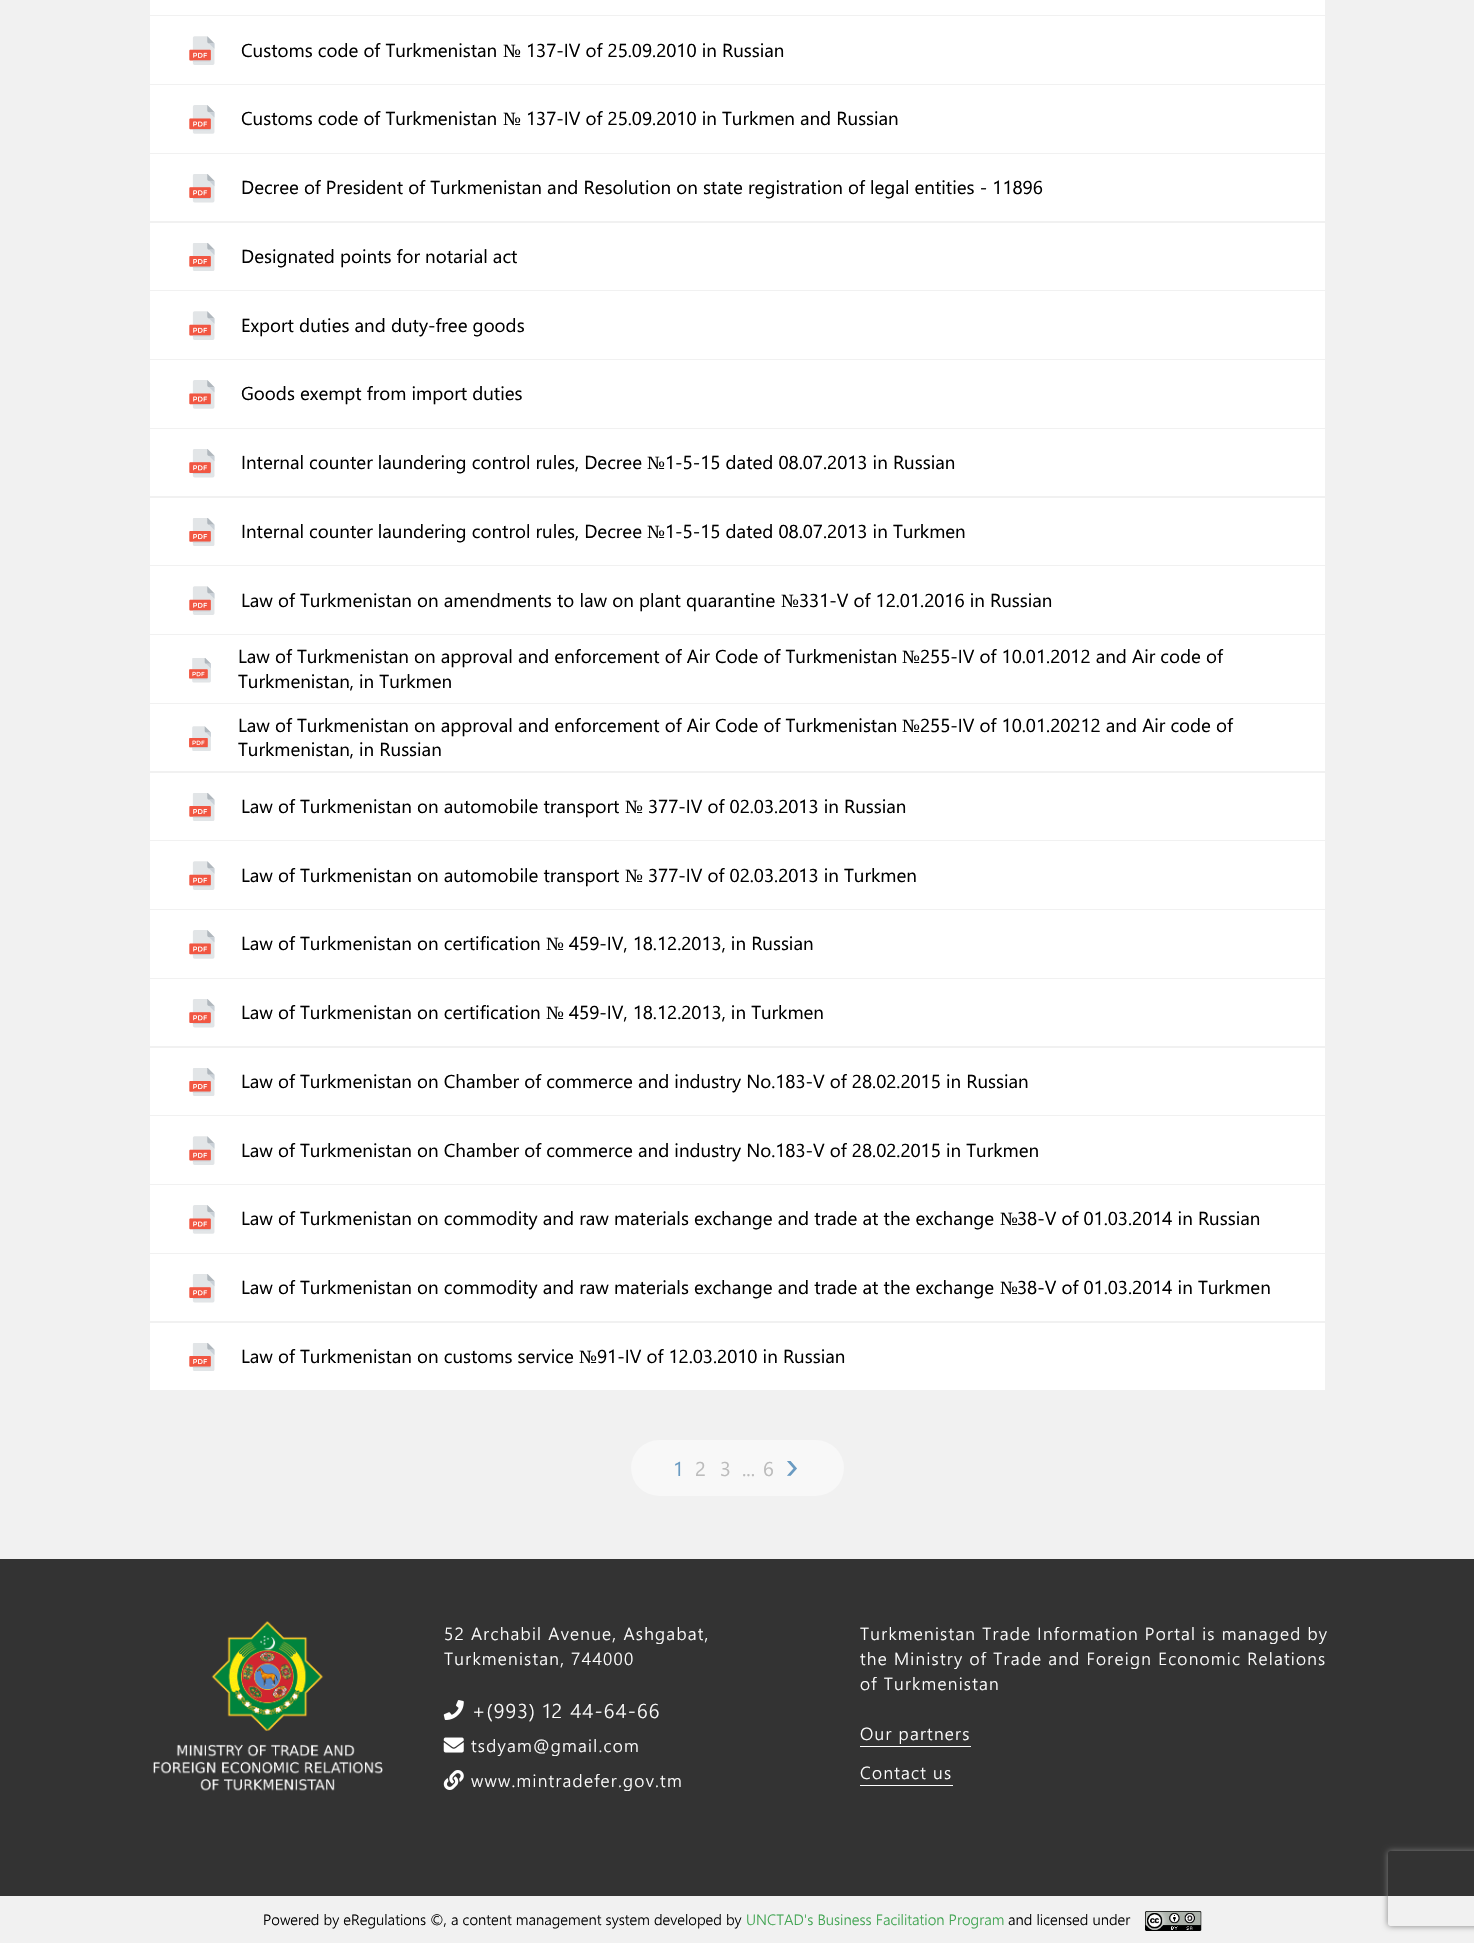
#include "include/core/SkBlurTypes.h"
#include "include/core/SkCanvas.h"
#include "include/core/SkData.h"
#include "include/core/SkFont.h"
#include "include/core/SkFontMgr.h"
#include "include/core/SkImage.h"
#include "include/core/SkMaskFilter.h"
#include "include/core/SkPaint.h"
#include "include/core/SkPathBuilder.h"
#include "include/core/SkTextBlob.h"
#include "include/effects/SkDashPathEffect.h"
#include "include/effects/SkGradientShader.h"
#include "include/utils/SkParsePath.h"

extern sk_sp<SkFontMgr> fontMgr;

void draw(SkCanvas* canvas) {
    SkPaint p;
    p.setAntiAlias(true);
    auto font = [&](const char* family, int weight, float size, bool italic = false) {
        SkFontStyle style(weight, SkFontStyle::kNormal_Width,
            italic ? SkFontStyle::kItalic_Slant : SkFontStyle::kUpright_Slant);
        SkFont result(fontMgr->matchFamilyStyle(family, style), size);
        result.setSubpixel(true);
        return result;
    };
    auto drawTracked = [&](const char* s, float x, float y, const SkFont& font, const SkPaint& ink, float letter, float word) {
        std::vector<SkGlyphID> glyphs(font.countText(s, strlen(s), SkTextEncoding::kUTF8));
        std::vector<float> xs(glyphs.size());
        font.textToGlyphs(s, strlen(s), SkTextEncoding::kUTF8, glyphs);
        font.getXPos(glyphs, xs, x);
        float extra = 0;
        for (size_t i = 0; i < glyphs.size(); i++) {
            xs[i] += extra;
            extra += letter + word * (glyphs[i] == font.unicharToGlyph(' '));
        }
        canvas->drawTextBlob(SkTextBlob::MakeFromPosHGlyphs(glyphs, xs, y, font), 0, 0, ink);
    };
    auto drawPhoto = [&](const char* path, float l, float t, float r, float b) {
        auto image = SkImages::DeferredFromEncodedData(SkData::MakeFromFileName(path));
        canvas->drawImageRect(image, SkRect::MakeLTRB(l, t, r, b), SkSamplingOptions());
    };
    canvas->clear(0xFFF1F1F1);
    p.setColor(0xFFFFFFFF);
    canvas->drawRect(SkRect::MakeLTRB(150, 0, 1325, 15), p);
    canvas->drawRect(SkRect::MakeLTRB(150, 16, 1325, 84), p);
    drawPhoto("media/1.png", 189, 36, 215, 65);
    auto font1 = font("Segoe UI", 400, 18.75f);
    p.setColor(0xFF000000);
    canvas->drawString("Customs code of Turkmenistan", 241, 57, font1, p);
    auto font2 = font("Liberation Serif", 400, 18.75f);
    canvas->drawString("№", 503, 57, font2, p);
    canvas->drawString("137-IV of 25.09.2010 in Russian", 526, 57, font1, p);
    p.setColor(0xFFFFFFFF);
    canvas->drawRect(SkRect::MakeLTRB(150, 85, 1325, 153), p);
    drawPhoto("media/2.png", 189, 105, 215, 134);
    p.setColor(0xFF000000);
    canvas->drawString("Customs code of Turkmenistan", 241, 125, font1, p);
    canvas->drawString("№", 503, 125, font2, p);
    canvas->drawString("137-IV of 25.09.2010 in Turkmen and Russian", 526, 125, font1, p);
    p.setColor(0xFFFFFFFF);
    canvas->drawRect(SkRect::MakeLTRB(150, 154, 1325, 221), p);
    drawPhoto("media/3.png", 189, 174, 215, 203);
    p.setColor(0xFF000000);
    canvas->drawString("Decree of President of Turkmenistan and Resolution on state registration of legal entities - 11896", 241, 194, font1, p);
    p.setColor(0xFFFFFFFF);
    canvas->drawRect(SkRect::MakeLTRB(150, 223, 1325, 290), p);
    drawPhoto("media/4.png", 189, 243, 215, 271);
    p.setColor(0xFF000000);
    canvas->drawString("Designated points for notarial act", 241, 263, font1, p);
    p.setColor(0xFFFFFFFF);
    canvas->drawRect(SkRect::MakeLTRB(150, 291, 1325, 359), p);
    drawPhoto("media/1.png", 189, 311, 215, 340);
    p.setColor(0xFF000000);
    canvas->drawString("Export duties and duty-free goods", 241, 332, font1, p);
    p.setColor(0xFFFFFFFF);
    canvas->drawRect(SkRect::MakeLTRB(150, 360, 1325, 428), p);
    drawPhoto("media/2.png", 189, 380, 215, 409);
    p.setColor(0xFF000000);
    canvas->drawString("Goods exempt from import duties", 241, 400, font1, p);
    p.setColor(0xFFFFFFFF);
    canvas->drawRect(SkRect::MakeLTRB(150, 429, 1325, 496), p);
    drawPhoto("media/3.png", 189, 449, 215, 478);
    p.setColor(0xFF000000);
    canvas->drawString("Internal counter laundering control rules, Decree", 241, 469, font1, p);
    canvas->drawString("№", 647, 469, font2, p);
    canvas->drawString("1-5-15 dated 08.07.2013 in Russian", 665, 469, font1, p);
    p.setColor(0xFFFFFFFF);
    canvas->drawRect(SkRect::MakeLTRB(150, 498, 1325, 565), p);
    drawPhoto("media/4.png", 189, 518, 215, 546);
    p.setColor(0xFF000000);
    canvas->drawString("Internal counter laundering control rules, Decree", 241, 538, font1, p);
    canvas->drawString("№", 647, 538, font2, p);
    canvas->drawString("1-5-15 dated 08.07.2013 in Turkmen", 665, 538, font1, p);
    p.setColor(0xFFFFFFFF);
    canvas->drawRect(SkRect::MakeLTRB(150, 566, 1325, 634), p);
    drawPhoto("media/1.png", 189, 586, 215, 615);
    p.setColor(0xFF000000);
    canvas->drawString("Law of Turkmenistan on amendments to law on plant quarantine", 241, 607, font1, p);
    canvas->drawString("№", 781, 607, font2, p);
    canvas->drawString("331-V of 12.01.2016 in Russian", 799, 607, font1, p);
    p.setColor(0xFFFFFFFF);
    canvas->drawRect(SkRect::MakeLTRB(150, 635, 1325, 703), p);
    drawPhoto("media/5.png", 189, 658, 211, 683);
    p.setColor(0xFF000000);
    canvas->drawString("Law of Turkmenistan on approval and enforcement of Air Code of Turkmenistan", 238, 663, font1, p);
    canvas->drawString("№", 902, 663, font2, p);
    canvas->drawString("255-IV of 10.01.2012 and Air code of", 920, 663, font1, p);
    canvas->drawString("Turkmenistan, in Turkmen", 238, 688, font1, p);
    p.setColor(0xFFFFFFFF);
    canvas->drawRect(SkRect::MakeLTRB(150, 704, 1325, 771), p);
    drawPhoto("media/6.png", 189, 726, 211, 751);
    p.setColor(0xFF000000);
    canvas->drawString("Law of Turkmenistan on approval and enforcement of Air Code of Turkmenistan", 238, 732, font1, p);
    canvas->drawString("№", 902, 732, font2, p);
    canvas->drawString("255-IV of 10.01.20212 and Air code of", 920, 732, font1, p);
    canvas->drawString("Turkmenistan, in Russian", 238, 756, font1, p);
    p.setColor(0xFFFFFFFF);
    canvas->drawRect(SkRect::MakeLTRB(150, 773, 1325, 840), p);
    drawPhoto("media/4.png", 189, 793, 215, 821);
    p.setColor(0xFF000000);
    canvas->drawString("Law of Turkmenistan on automobile transport", 241, 813, font1, p);
    canvas->drawString("№", 625, 813, font2, p);
    canvas->drawString("377-IV of 02.03.2013 in Russian", 648, 813, font1, p);
    p.setColor(0xFFFFFFFF);
    canvas->drawRect(SkRect::MakeLTRB(150, 841, 1325, 909), p);
    drawPhoto("media/1.png", 189, 861, 215, 890);
    p.setColor(0xFF000000);
    canvas->drawString("Law of Turkmenistan on automobile transport", 241, 882, font1, p);
    canvas->drawString("№", 625, 882, font2, p);
    canvas->drawString("377-IV of 02.03.2013 in Turkmen", 648, 882, font1, p);
    p.setColor(0xFFFFFFFF);
    canvas->drawRect(SkRect::MakeLTRB(150, 910, 1325, 978), p);
    drawPhoto("media/2.png", 189, 930, 215, 959);
    p.setColor(0xFF000000);
    canvas->drawString("Law of Turkmenistan on certification", 241, 950, font1, p);
    canvas->drawString("№", 546, 950, font2, p);
    canvas->drawString("459-IV, 18.12.2013, in Russian", 569, 950, font1, p);
    p.setColor(0xFFFFFFFF);
    canvas->drawRect(SkRect::MakeLTRB(150, 979, 1325, 1046), p);
    drawPhoto("media/3.png", 189, 999, 215, 1028);
    p.setColor(0xFF000000);
    canvas->drawString("Law of Turkmenistan on certification", 241, 1019, font1, p);
    canvas->drawString("№", 546, 1019, font2, p);
    canvas->drawString("459-IV, 18.12.2013, in Turkmen", 569, 1019, font1, p);
    p.setColor(0xFFFFFFFF);
    canvas->drawRect(SkRect::MakeLTRB(150, 1048, 1325, 1115), p);
    drawPhoto("media/4.png", 189, 1068, 215, 1096);
    p.setColor(0xFF000000);
    canvas->drawString("Law of Turkmenistan on Chamber of commerce and industry No.183-V of 28.02.2015 in Russian", 241, 1088, font1, p);
    p.setColor(0xFFFFFFFF);
    canvas->drawRect(SkRect::MakeLTRB(150, 1116, 1325, 1184), p);
    drawPhoto("media/1.png", 189, 1136, 215, 1165);
    p.setColor(0xFF000000);
    canvas->drawString("Law of Turkmenistan on Chamber of commerce and industry No.183-V of 28.02.2015 in Turkmen", 241, 1157, font1, p);
    p.setColor(0xFFFFFFFF);
    canvas->drawRect(SkRect::MakeLTRB(150, 1185, 1325, 1253), p);
    drawPhoto("media/2.png", 189, 1205, 215, 1234);
    p.setColor(0xFF000000);
    canvas->drawString("Law of Turkmenistan on commodity and raw materials exchange and trade at the exchange", 241, 1225, font1, p);
    canvas->drawString("№", 1000, 1225, font2, p);
    canvas->drawString("38-V of 01.03.2014 in Russian", 1017, 1225, font1, p);
    p.setColor(0xFFFFFFFF);
    canvas->drawRect(SkRect::MakeLTRB(150, 1254, 1325, 1321), p);
    drawPhoto("media/3.png", 189, 1274, 215, 1303);
    p.setColor(0xFF000000);
    canvas->drawString("Law of Turkmenistan on commodity and raw materials exchange and trade at the exchange", 241, 1294, font1, p);
    canvas->drawString("№", 1000, 1294, font2, p);
    canvas->drawString("38-V of 01.03.2014 in Turkmen", 1017, 1294, font1, p);
    p.setColor(0xFFFFFFFF);
    canvas->drawRect(SkRect::MakeLTRB(150, 1323, 1325, 1390), p);
    drawPhoto("media/4.png", 189, 1343, 215, 1371);
    p.setColor(0xFF000000);
    canvas->drawString("Law of Turkmenistan on customs service", 241, 1363, font1, p);
    canvas->drawString("№", 579, 1363, font2, p);
    canvas->drawString("91-IV of 12.03.2010 in Russian", 597, 1363, font1, p);
    p.setColor(0xFFF8F8F8);
    canvas->drawRoundRect(SkRect::MakeLTRB(631, 1440, 844, 1496), 28, 28, p);
    auto font3 = font("Segoe UI", 400, 20);
    p.setColor(0xFF6A9BC2);
    canvas->drawString("1", 673, 1476, font3, p);
    p.setColor(0xFFBCBCBC);
    {
        const struct { const char* s; float x, y; } items[] = {
            {"2", 695, 1476},
            {"3", 720, 1476},
            {"...", 742, 1476},
            {"6", 763, 1476},
        };
        for (auto [s, x, y] : items) {
            canvas->drawString(s, x, y, font3, p);
        }
    }
    auto font4 = font("Segoe UI", 400, 44);
    p.setColor(0xFF6A9BC2);
    canvas->drawString("›", 785, 1480, font4, p);
    p.setColor(0xFF333333);
    canvas->drawRect(SkRect::MakeLTRB(0, 1559, 1474, 1896), p);
    drawPhoto("media/7.png", 153, 1621, 383, 1791);
    auto font5 = font("Segoe UI", 300, 17.5f);
    p.setColor(0xFFFFFFFF);
    drawTracked("52 Archabil Avenue, Ashgabat,", 444, 1640, font5, p, 1.25f, 0);
    drawTracked("Turkmenistan, 744000", 444, 1665, font5, p, 1.25f, 0);
    drawPhoto("media/8.png", 443, 1700, 464, 1720);
    auto font6 = font("Segoe UI", 300, 20);
    drawTracked("+(993) 12 44-64-66", 472, 1718, font6, p, 1.25f, 0);
    drawPhoto("media/9.png", 443, 1737, 464, 1753);
    drawTracked("tsdyam@gmail.com", 471, 1752, font5, p, 1.25f, 0);
    drawPhoto("media/10.png", 443, 1770, 464, 1790);
    {
        const struct { const char* s; float x, y; } items[] = {
            {"www.mintradefer.gov.tm", 471, 1787},
            {"Turkmenistan Trade Information Portal is managed by", 860, 1640},
            {"the Ministry of Trade and Foreign Economic Relations", 860, 1665},
            {"of Turkmenistan", 860, 1690},
        };
        for (auto [s, x, y] : items) {
            drawTracked(s, x, y, font5, p, 1.25f, 0);
        }
    }
    canvas->drawRect(SkRect::MakeLTRB(860, 1746, 971, 1747), p);
    drawTracked("Our partners", 860, 1740, font5, p, 1.25f, 0);
    canvas->drawRect(SkRect::MakeLTRB(860, 1785, 953, 1786), p);
    drawTracked("Contact us", 860, 1779, font5, p, 1.25f, 0);
    auto font7 = font("Segoe UI", 300, 15);
    p.setColor(0xFF000000);
    canvas->drawString("Powered by eRegulations ©, a content management system developed by", 263, 1925, font7, p);
    p.setColor(0xFF42A553);
    canvas->drawString("UNCTAD's Business Facilitation Program", 746, 1925, font7, p);
    p.setColor(0xFF000000);
    canvas->drawString("and licensed under", 1008, 1925, font7, p);
    drawPhoto("media/11.png", 1145, 1911, 1202, 1931);
    canvas->save();
    canvas->clipPath(SkPathBuilder(SkPathFillType::kEvenOdd).moveTo(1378, 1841).lineTo(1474, 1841).lineTo(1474, 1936).lineTo(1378, 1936).close().moveTo(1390.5f, 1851).lineTo(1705.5f, 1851).cubicTo(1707, 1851, 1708, 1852, 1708, 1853.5f).lineTo(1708, 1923.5f).cubicTo(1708, 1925, 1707, 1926, 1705.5f, 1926).lineTo(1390.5f, 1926).cubicTo(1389, 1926, 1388, 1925, 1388, 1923.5f).lineTo(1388, 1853.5f).cubicTo(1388, 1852, 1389, 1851, 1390.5f, 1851).close().detach(), true);
    p.setColor(0xFF808080);
    p.setMaskFilter(SkMaskFilter::MakeBlur(kNormal_SkBlurStyle, 3));
    canvas->drawRoundRect(SkRect::MakeLTRB(1388, 1851, 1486, 1926), 2.5f, 2.5f, p);
    p.setMaskFilter(nullptr);
    canvas->restore();
}
